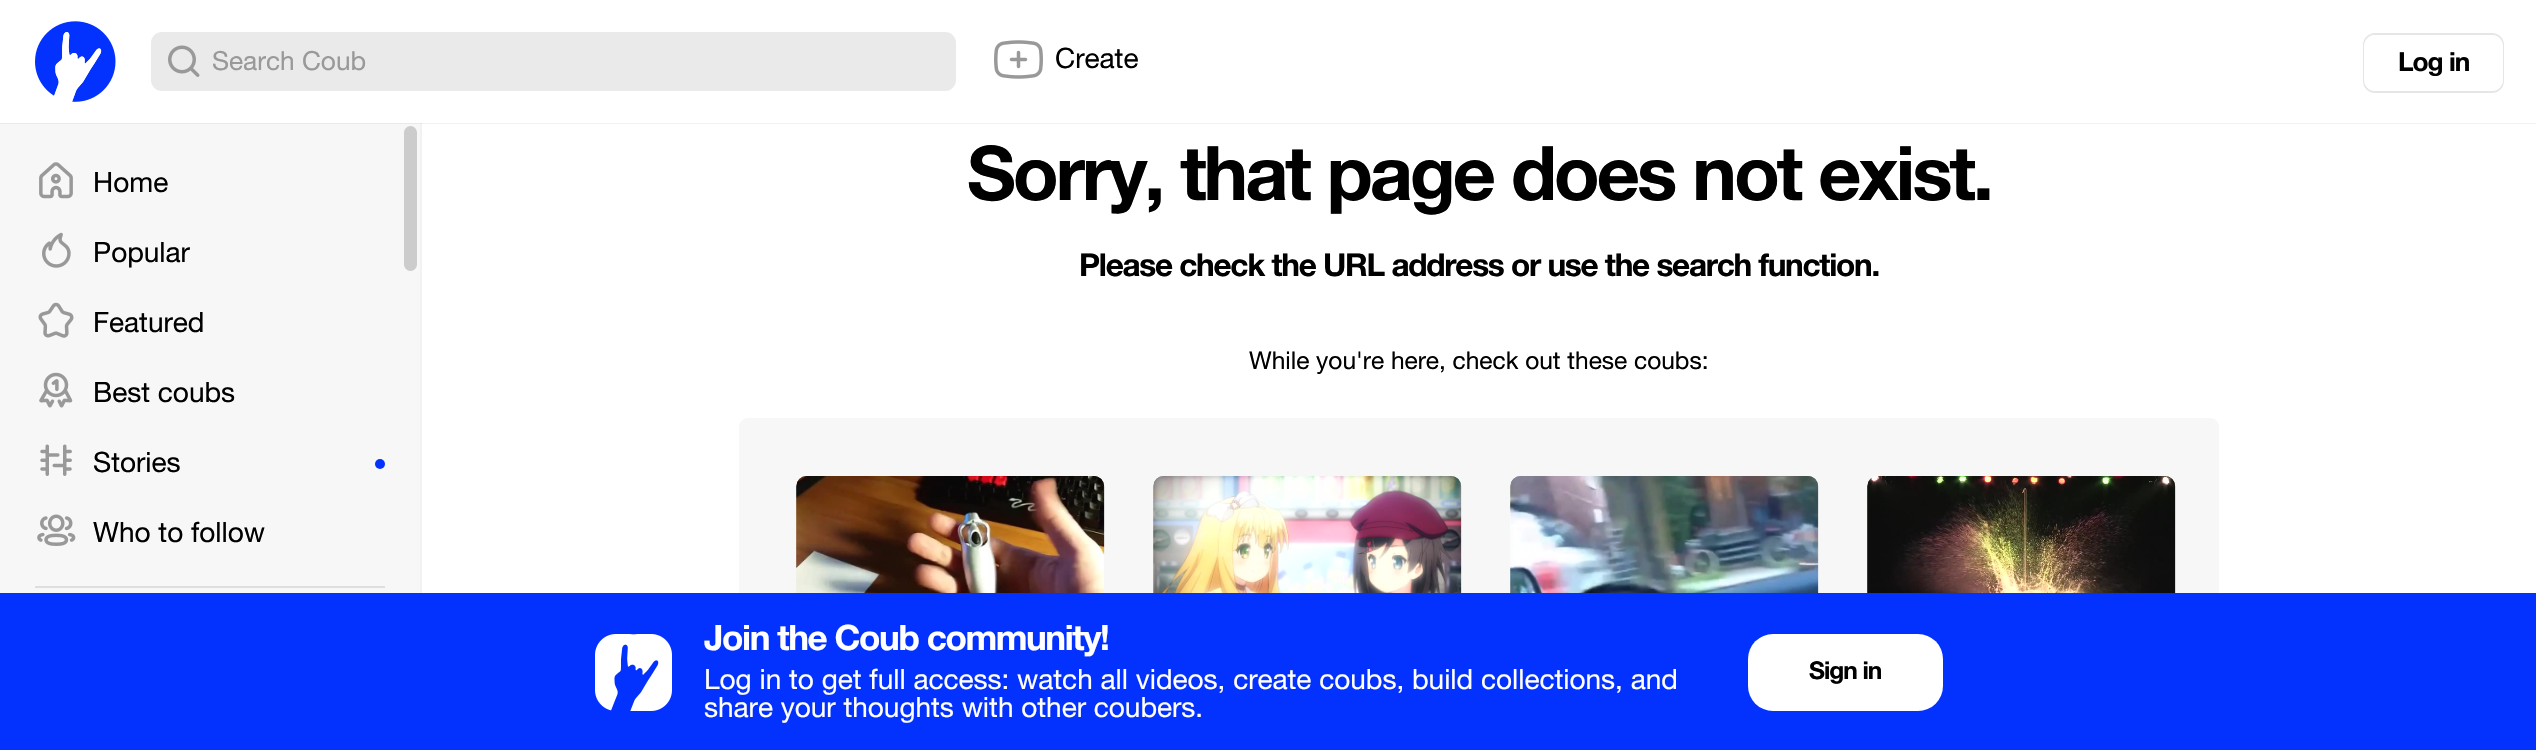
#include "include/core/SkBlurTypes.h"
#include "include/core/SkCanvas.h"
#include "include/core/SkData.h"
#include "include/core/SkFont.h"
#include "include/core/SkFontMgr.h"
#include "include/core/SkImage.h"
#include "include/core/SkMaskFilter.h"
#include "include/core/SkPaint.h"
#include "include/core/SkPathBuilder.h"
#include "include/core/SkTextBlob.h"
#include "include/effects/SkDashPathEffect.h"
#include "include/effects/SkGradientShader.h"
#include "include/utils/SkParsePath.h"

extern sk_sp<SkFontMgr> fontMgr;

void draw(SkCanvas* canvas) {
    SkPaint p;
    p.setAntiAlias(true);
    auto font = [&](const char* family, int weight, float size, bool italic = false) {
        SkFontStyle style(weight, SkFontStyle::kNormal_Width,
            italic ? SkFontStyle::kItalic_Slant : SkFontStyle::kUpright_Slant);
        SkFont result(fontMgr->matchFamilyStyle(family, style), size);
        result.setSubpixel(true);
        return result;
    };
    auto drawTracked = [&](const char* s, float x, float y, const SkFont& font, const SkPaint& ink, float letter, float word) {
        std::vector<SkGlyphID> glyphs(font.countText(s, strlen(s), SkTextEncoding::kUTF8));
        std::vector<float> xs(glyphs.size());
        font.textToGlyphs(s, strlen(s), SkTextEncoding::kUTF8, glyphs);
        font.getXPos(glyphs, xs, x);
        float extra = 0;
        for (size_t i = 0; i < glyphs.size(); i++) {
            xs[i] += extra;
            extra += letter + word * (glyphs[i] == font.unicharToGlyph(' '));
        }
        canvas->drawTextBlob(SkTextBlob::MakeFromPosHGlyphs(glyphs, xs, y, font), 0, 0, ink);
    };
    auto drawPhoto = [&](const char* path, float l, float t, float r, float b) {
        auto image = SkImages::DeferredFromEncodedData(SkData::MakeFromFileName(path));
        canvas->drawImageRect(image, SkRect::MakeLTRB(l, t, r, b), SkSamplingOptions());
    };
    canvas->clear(0xFFFFFFFF);
    p.setStyle(SkPaint::kStroke_Style);
    p.setStrokeWidth(2);
    p.setColor(0xFFF2F2F2);
    canvas->drawRect(SkRect::MakeLTRB(-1, -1, 421, 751), p);
    p.setStyle(SkPaint::kFill_Style);
    p.setColor(0xFFF7F7F7);
    canvas->drawRect(SkRect::MakeLTRB(0, 123, 420, 593), p);
    p.setColor(0x0D000000);
    canvas->drawPath(SkPathBuilder().moveTo(0, 122).lineTo(0, 124).lineTo(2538, 124).lineTo(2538, 2).lineTo(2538, 122).close().detach(), p);
    p.setColor(0xFFFFFFFF);
    canvas->drawRect(SkRect::MakeLTRB(0, 0, 2536, 123), p);
    drawPhoto("media/1.png", 35, 21, 116, 102);
    p.setColor(0xFFEAEAEA);
    canvas->drawRoundRect(SkRect::MakeLTRB(151, 32, 956, 91), 11, 11, p);
    drawPhoto("media/2.png", 168, 45, 200, 77);
    auto font1 = font("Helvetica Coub", 400, 26.25f);
    p.setColor(0xFF999999);
    canvas->drawString("Search Coub", 212, 70, font1, p);
    drawPhoto("media/3.png", 994, 40, 1043, 79);
    auto font2 = font("Helvetica Coub", 400, 28);
    p.setColor(0xFF000000);
    canvas->drawString("Create", 1055, 68, font2, p);
    p.setStyle(SkPaint::kStroke_Style);
    p.setColor(0xFFE6E6E6);
    canvas->drawRoundRect(SkRect::MakeLTRB(2364, 34, 2503, 92), 11, 11, p);
    p.setStyle(SkPaint::kFill_Style);
    p.setColor(0xFFFFFFFF);
    canvas->drawRoundRect(SkRect::MakeLTRB(2364, 35, 2503, 91), 11, 11, p);
    auto font3 = font("Helvetica Coub", 700, 26.25f);
    p.setColor(0xFF000000);
    drawTracked("Log in", 2398, 71, font3, p, -1, 0);
    drawPhoto("media/4.png", 39, 162, 73, 199);
    canvas->drawString("Home", 93, 192, font2, p);
    drawPhoto("media/5.png", 42, 232, 71, 268);
    canvas->drawString("Popular", 93, 262, font2, p);
    drawPhoto("media/6.png", 38, 302, 74, 338);
    canvas->drawString("Featured", 93, 332, font2, p);
    drawPhoto("media/7.png", 39, 372, 73, 408);
    canvas->drawString("Best coubs", 93, 402, font2, p);
    drawPhoto("media/8.png", 40, 444, 72, 476);
    canvas->drawString("Stories", 93, 472, font2, p);
    p.setColor(0xFF0332FF);
    canvas->drawCircle(380, 464, 5, p);
    drawPhoto("media/9.png", 37, 514, 76, 546);
    p.setColor(0xFF000000);
    canvas->drawString("Who to follow", 93, 542, font2, p);
    p.setColor(0xFFDEDEDE);
    canvas->drawRect(SkRect::MakeLTRB(35, 586, 385, 588), p);
    p.setColor(0xFFCCCCCC);
    canvas->drawRoundRect(SkRect::MakeLTRB(404, 126, 417, 271), 6.5f, 6.5f, p);
    auto font4 = font("Helvetica Coub", 700, 75.25f);
    p.setColor(0xFF000000);
    drawTracked("Sorry, that page does not exist.", 967, 200, font4, p, -3, 0);
    auto font5 = font("Helvetica Coub", 700, 31.5f);
    drawTracked("Please check the URL address or use the search function.", 1079, 276, font5, p, -1.25f, 0);
    auto font6 = font("Helvetica Coub", 400, 24.5f);
    canvas->drawString("While you're here, check out these coubs:", 1249, 369, font6, p);
    p.setColor(0xFFF7F7F7);
    canvas->drawRoundRect(SkRect::MakeLTRB(739, 418, 2219, 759), 9, 9, p);
    drawPhoto("media/10.png", 796, 476, 1105, 593);
    drawPhoto("media/11.png", 796, 476, 1105, 593);
    drawPhoto("media/12.png", 1153, 476, 1462, 593);
    drawPhoto("media/13.png", 1153, 476, 1462, 593);
    drawPhoto("media/14.png", 1510, 476, 1819, 593);
    drawPhoto("media/15.png", 1510, 476, 1819, 593);
    drawPhoto("media/16.png", 1867, 476, 2176, 593);
    drawPhoto("media/17.png", 1867, 476, 2176, 593);
    p.setColor(0xFF0332FF);
    canvas->drawRect(SkRect::MakeLTRB(0, 593, 2536, 750), p);
    drawPhoto("media/18.png", 595, 634, 672, 711);
    auto font7 = font("Helvetica Coub", 700, 35);
    p.setColor(0xFFFFFFFF);
    drawTracked("Join the Coub community!", 704, 650, font7, p, -1.4f, 0);
    canvas->drawString("Log in to get full access: watch all videos, create coubs, build collections, and", 704, 689, font2, p);
    canvas->drawString("share your thoughts with other coubers.", 704, 717, font2, p);
    canvas->drawRoundRect(SkRect::MakeLTRB(1748, 634, 1943, 711), 25, 25, p);
    auto font8 = font("Helvetica Coub", 700, 24.5f);
    p.setColor(0xFF000000);
    drawTracked("Sign in", 1809, 679, font8, p, -1, 0);
}
